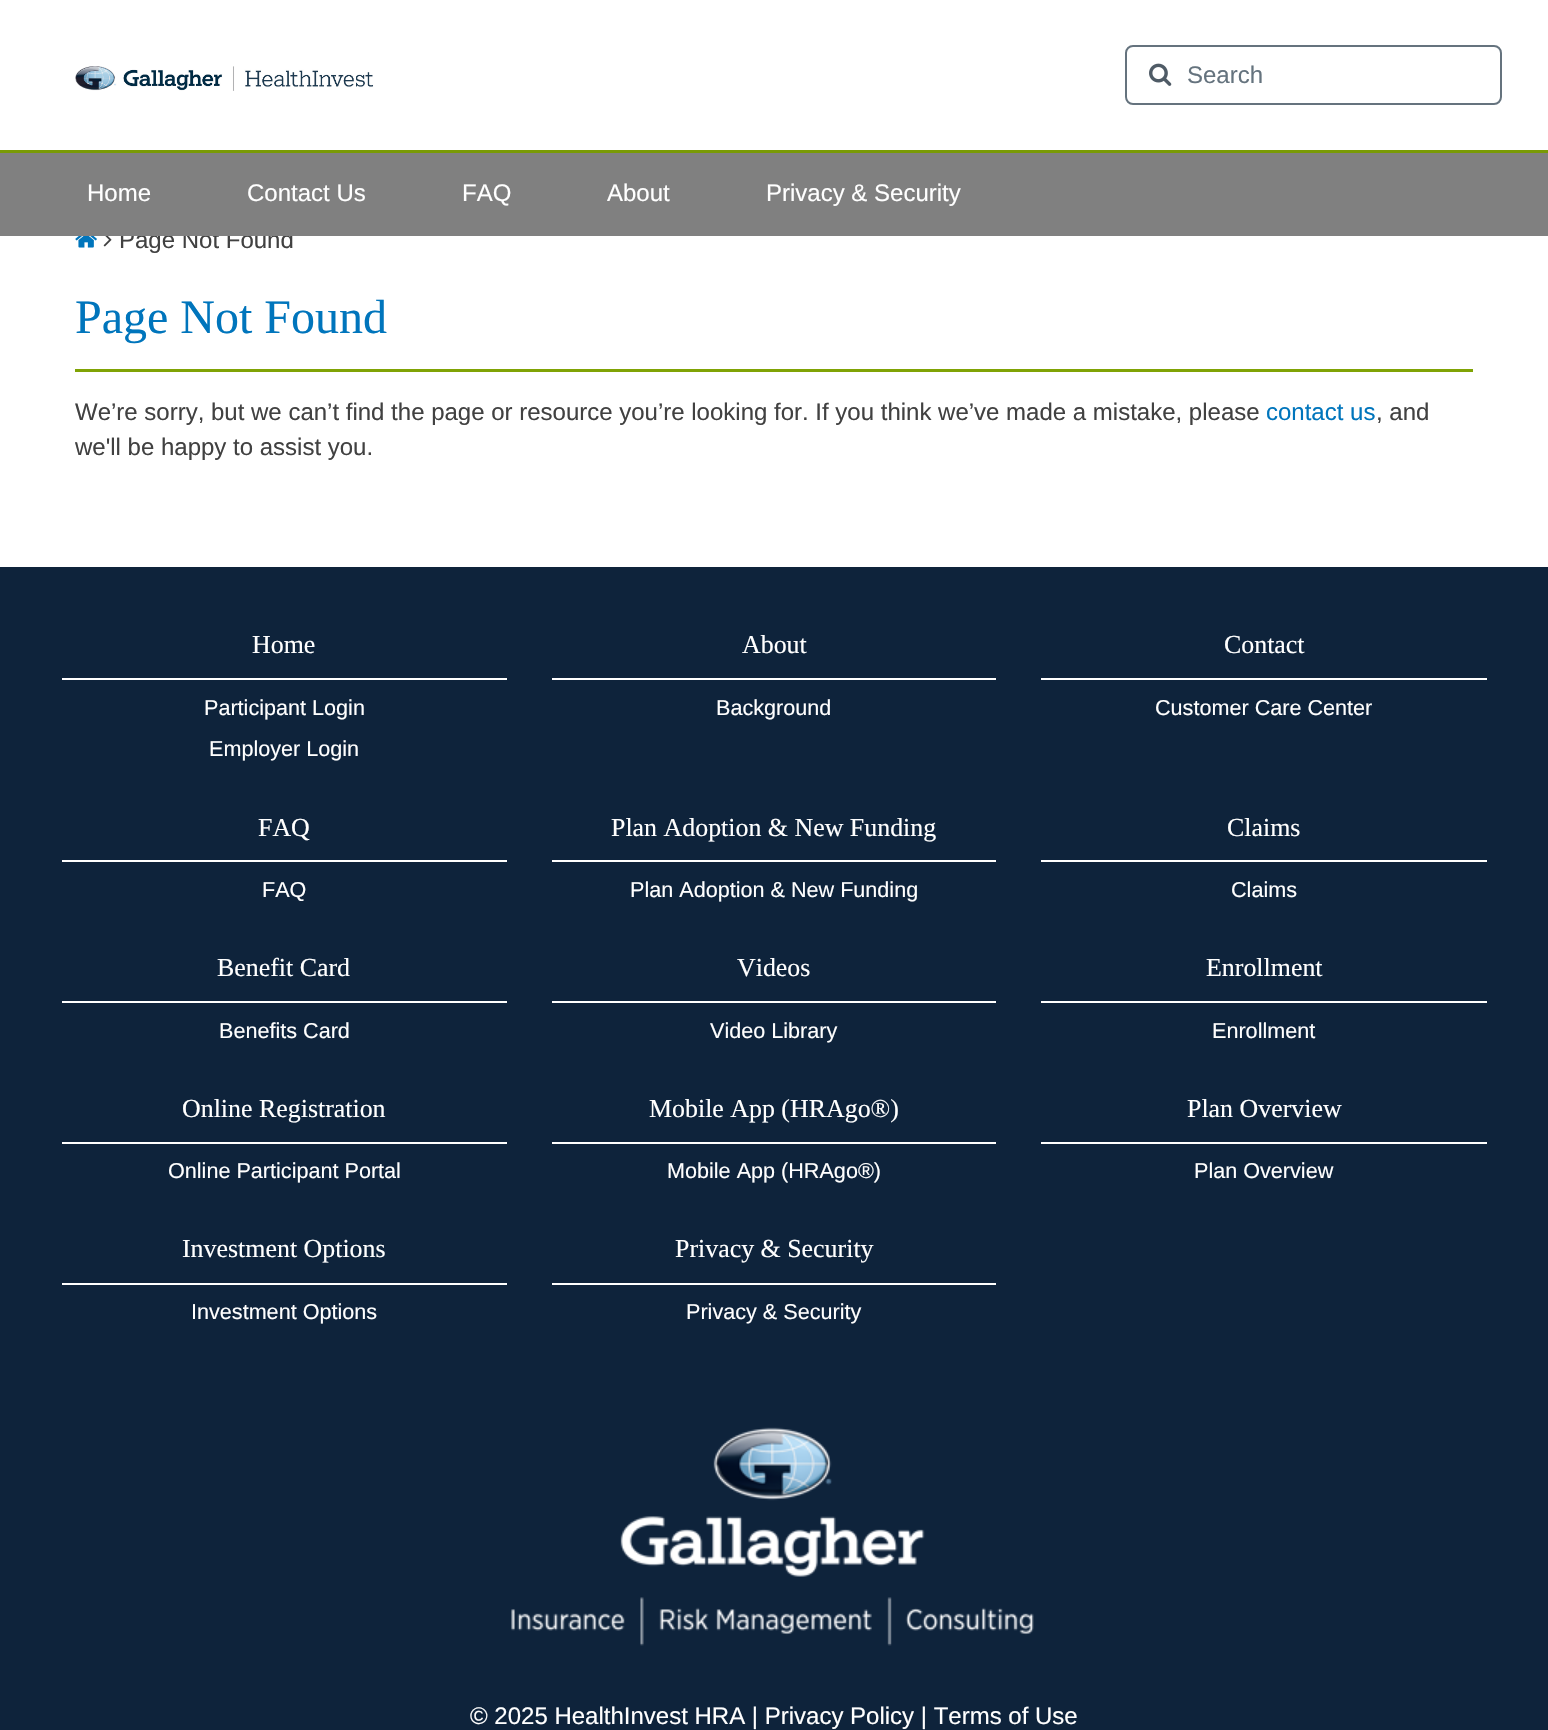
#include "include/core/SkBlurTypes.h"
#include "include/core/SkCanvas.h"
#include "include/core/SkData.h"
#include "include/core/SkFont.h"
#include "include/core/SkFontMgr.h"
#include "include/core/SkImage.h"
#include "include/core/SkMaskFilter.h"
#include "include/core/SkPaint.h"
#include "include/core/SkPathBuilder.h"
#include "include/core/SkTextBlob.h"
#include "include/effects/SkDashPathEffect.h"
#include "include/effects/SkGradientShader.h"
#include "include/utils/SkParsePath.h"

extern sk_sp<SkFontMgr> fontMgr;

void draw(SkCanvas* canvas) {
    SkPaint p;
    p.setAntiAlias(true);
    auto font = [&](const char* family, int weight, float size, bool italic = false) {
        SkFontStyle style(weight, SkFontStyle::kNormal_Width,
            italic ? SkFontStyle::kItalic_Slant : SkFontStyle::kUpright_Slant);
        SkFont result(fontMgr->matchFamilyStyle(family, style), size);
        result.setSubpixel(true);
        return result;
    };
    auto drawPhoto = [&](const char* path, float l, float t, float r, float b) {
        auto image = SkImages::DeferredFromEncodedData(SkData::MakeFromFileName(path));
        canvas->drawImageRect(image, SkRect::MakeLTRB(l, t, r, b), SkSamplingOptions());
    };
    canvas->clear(0xFFFFFFFF);
    drawPhoto("media/1.png", 75, 66, 374, 91);
    p.setStyle(SkPaint::kStroke_Style);
    p.setStrokeWidth(2);
    p.setColor(0xFF65737E);
    canvas->drawRoundRect(SkRect::MakeLTRB(1126, 46, 1501, 104), 7, 7, p);
    drawPhoto("media/2.png", 1149, 63, 1172, 86);
    auto font1 = font("Liberation Sans", 400, 24);
    p.setStyle(SkPaint::kFill_Style);
    canvas->drawString("Search", 1187, 83, font1, p);
    p.setColor(0xFF414141);
    canvas->drawString("Page Not Found", 119, 248, font1, p);
    p.setColor(0xFF808080);
    canvas->drawRect(SkRect::MakeLTRB(0, 153, 1548, 236), p);
    p.setColor(0xFF799A05);
    canvas->drawRect(SkRect::MakeLTRB(0, 150, 1548, 153), p);
    p.setColor(0xFFFFFFFF);
    {
        const struct { const char* s; float x, y; } items[] = {
            {"Home", 87, 201},
            {"Contact Us", 247, 201},
            {"FAQ", 462, 201},
            {"About", 607, 201},
            {"Privacy & Security", 766, 201},
        };
        for (auto [s, x, y] : items) {
            canvas->drawString(s, x, y, font1, p);
        }
    }
    drawPhoto("media/3.png", 75, 236, 97, 248);
    drawPhoto("media/4.png", 103, 236, 112, 247);
    p.setColor(0xFF80A305);
    canvas->drawRect(SkRect::MakeLTRB(75, 369, 1473, 372), p);
    auto font2 = font("Liberation Serif", 400, 48);
    p.setColor(0xFF0075BC);
    canvas->drawString("Page Not Found", 75, 333, font2, p);
    p.setColor(0xFF414141);
    canvas->drawString("We’re sorry, but we can’t find the page or resource you’re looking for. If you think we’ve made a mistake, please", 75, 420, font1, p);
    p.setColor(0xFF0075BC);
    canvas->drawString("contact us", 1266, 420, font1, p);
    p.setColor(0xFF414141);
    canvas->drawString(", and", 1376, 420, font1, p);
    canvas->drawString("we'll be happy to assist you.", 75, 455, font1, p);
    p.setColor(0xFF0E233B);
    canvas->drawRect(SkRect::MakeLTRB(0, 567, 1548, 1730), p);
    p.setColor(0xFFFFFFFF);
    canvas->drawRect(SkRect::MakeLTRB(62, 678, 507, 680), p);
    auto font3 = font("Liberation Serif", 400, 25.9f);
    canvas->drawString("Home", 252, 653, font3, p);
    auto font4 = font("Liberation Sans", 400, 21.6f);
    canvas->drawString("Participant Login", 204, 715, font4, p);
    canvas->drawString("Employer Login", 209, 756, font4, p);
    canvas->drawRect(SkRect::MakeLTRB(552, 678, 996, 680), p);
    canvas->drawString("About", 742, 653, font3, p);
    canvas->drawString("Background", 716, 715, font4, p);
    canvas->drawRect(SkRect::MakeLTRB(1041, 678, 1487, 680), p);
    canvas->drawString("Contact", 1224, 653, font3, p);
    canvas->drawString("Customer Care Center", 1155, 715, font4, p);
    canvas->drawRect(SkRect::MakeLTRB(62, 860, 507, 862), p);
    canvas->drawString("FAQ", 258, 836, font3, p);
    canvas->drawString("FAQ", 262, 897, font4, p);
    canvas->drawRect(SkRect::MakeLTRB(552, 860, 996, 862), p);
    canvas->drawString("Plan Adoption & New Funding", 611, 836, font3, p);
    canvas->drawString("Plan Adoption & New Funding", 630, 897, font4, p);
    canvas->drawRect(SkRect::MakeLTRB(1041, 860, 1487, 862), p);
    canvas->drawString("Claims", 1227, 836, font3, p);
    canvas->drawString("Claims", 1231, 897, font4, p);
    canvas->drawRect(SkRect::MakeLTRB(62, 1001, 507, 1003), p);
    canvas->drawString("Benefit Card", 217, 976, font3, p);
    canvas->drawString("Benefits Card", 219, 1038, font4, p);
    canvas->drawRect(SkRect::MakeLTRB(552, 1001, 996, 1003), p);
    canvas->drawString("Videos", 737, 976, font3, p);
    canvas->drawString("Video Library", 710, 1038, font4, p);
    canvas->drawRect(SkRect::MakeLTRB(1041, 1001, 1487, 1003), p);
    canvas->drawString("Enrollment", 1206, 976, font3, p);
    canvas->drawString("Enrollment", 1212, 1038, font4, p);
    canvas->drawRect(SkRect::MakeLTRB(62, 1142, 507, 1144), p);
    canvas->drawString("Online Registration", 182, 1117, font3, p);
    canvas->drawString("Online Participant Portal", 168, 1178, font4, p);
    canvas->drawRect(SkRect::MakeLTRB(552, 1142, 996, 1144), p);
    canvas->drawString("Mobile App (HRAgo®)", 649, 1117, font3, p);
    canvas->drawString("Mobile App (HRAgo®)", 667, 1178, font4, p);
    canvas->drawRect(SkRect::MakeLTRB(1041, 1142, 1487, 1144), p);
    canvas->drawString("Plan Overview", 1187, 1117, font3, p);
    canvas->drawString("Plan Overview", 1194, 1178, font4, p);
    canvas->drawRect(SkRect::MakeLTRB(62, 1283, 507, 1285), p);
    canvas->drawString("Investment Options", 182, 1257, font3, p);
    canvas->drawString("Investment Options", 191, 1319, font4, p);
    canvas->drawRect(SkRect::MakeLTRB(552, 1283, 996, 1285), p);
    canvas->drawString("Privacy & Security", 675, 1257, font3, p);
    canvas->drawString("Privacy & Security", 686, 1319, font4, p);
    drawPhoto("media/5.png", 511, 1427, 1034, 1646);
    canvas->drawString("© 2025 HealthInvest HRA | Privacy Policy | Terms of Use", 470, 1724, font1, p);
}
